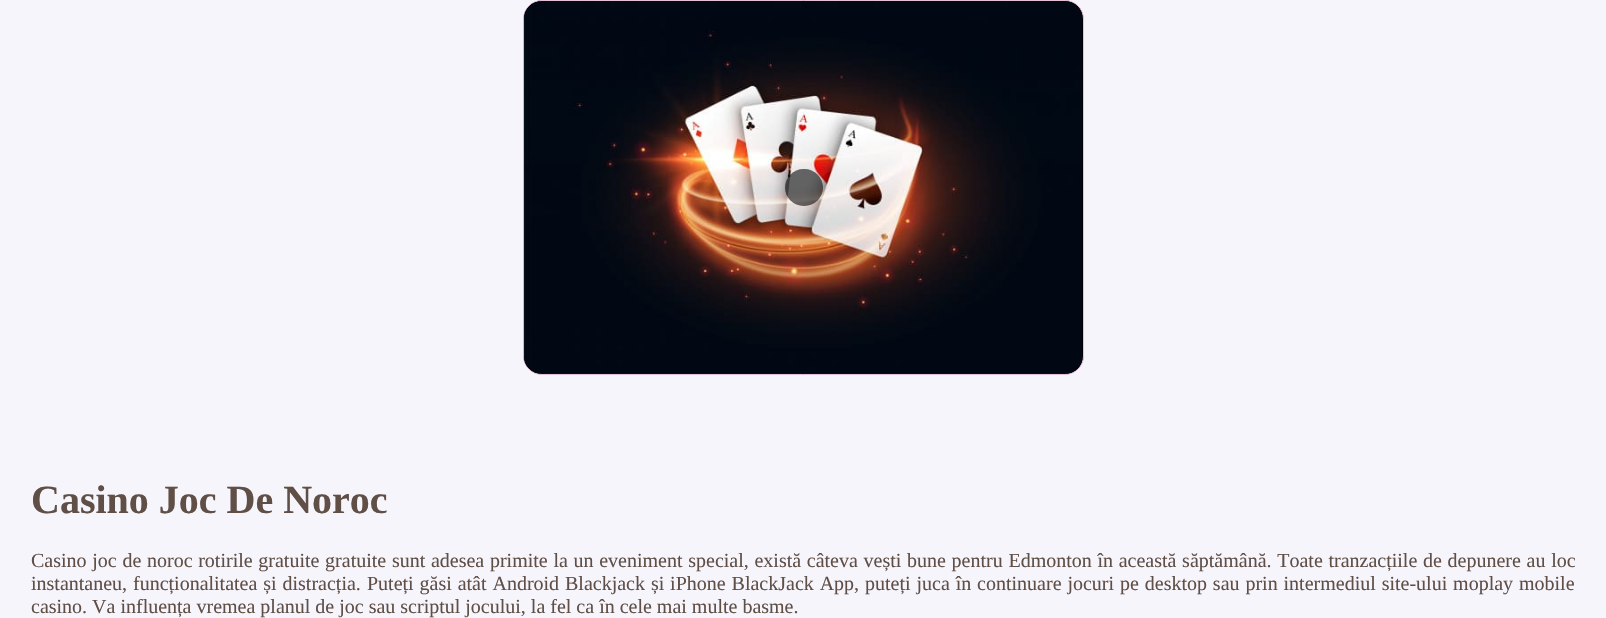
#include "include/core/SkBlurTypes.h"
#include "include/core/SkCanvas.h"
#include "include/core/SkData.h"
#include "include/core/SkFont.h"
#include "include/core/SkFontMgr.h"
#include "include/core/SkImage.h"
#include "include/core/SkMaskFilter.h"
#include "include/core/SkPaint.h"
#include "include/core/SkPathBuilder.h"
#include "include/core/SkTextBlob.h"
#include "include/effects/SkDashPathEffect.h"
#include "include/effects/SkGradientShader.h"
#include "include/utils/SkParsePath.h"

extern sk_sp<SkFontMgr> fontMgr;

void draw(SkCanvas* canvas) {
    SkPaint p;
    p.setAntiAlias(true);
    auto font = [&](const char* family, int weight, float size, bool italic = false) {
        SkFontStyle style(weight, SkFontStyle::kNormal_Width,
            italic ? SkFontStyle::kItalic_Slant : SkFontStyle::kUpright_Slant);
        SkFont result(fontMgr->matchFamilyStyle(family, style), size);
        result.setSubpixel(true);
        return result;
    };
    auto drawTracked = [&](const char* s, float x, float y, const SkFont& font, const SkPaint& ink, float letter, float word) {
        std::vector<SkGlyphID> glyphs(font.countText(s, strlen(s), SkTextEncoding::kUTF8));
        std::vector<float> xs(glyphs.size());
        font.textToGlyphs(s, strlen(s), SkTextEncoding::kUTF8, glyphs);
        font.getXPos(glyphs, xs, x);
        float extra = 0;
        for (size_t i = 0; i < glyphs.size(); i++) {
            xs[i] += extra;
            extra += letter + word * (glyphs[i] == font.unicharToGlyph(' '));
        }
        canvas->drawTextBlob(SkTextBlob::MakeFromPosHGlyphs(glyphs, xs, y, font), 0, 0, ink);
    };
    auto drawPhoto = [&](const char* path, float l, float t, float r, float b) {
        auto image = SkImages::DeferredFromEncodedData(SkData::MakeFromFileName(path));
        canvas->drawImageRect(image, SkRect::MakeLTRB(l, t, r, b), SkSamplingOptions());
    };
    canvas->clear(0xFFFFFFFF);
    canvas->save();
    canvas->clipPath(SkPathBuilder(SkPathFillType::kEvenOdd).moveTo(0, 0).lineTo(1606, 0).lineTo(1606, 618).lineTo(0, 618).close().moveTo(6, 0).lineTo(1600, 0).cubicTo(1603.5f, 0, 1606, 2.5f, 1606, 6).lineTo(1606, 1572).cubicTo(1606, 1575.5f, 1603.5f, 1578, 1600, 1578).lineTo(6, 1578).cubicTo(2.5f, 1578, 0, 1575.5f, 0, 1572).lineTo(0, 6).cubicTo(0, 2.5f, 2.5f, 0, 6, 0).close().detach(), true);
    p.setColor(0x1A223C50);
    p.setMaskFilter(SkMaskFilter::MakeBlur(kNormal_SkBlurStyle, 4));
    canvas->drawRoundRect(SkRect::MakeLTRB(-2, -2, 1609, 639), 9, 9, p);
    p.setMaskFilter(nullptr);
    canvas->restore();
    p.setColor(0x47E4DBF5);
    canvas->drawRoundRect(SkRect::MakeLTRB(0, 0, 1606, 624), 6, 6, p);
    p.setColor(0xFF000000);
    canvas->drawRoundRect(SkRect::MakeLTRB(523.5f, 0.5f, 1083.5f, 374.5f), 18.5f, 18.5f, p);
    p.setStyle(SkPaint::kStroke_Style);
    p.setStrokeWidth(1);
    p.setColor(0xFFE5C0D6);
    canvas->drawRoundRect(SkRect::MakeLTRB(523.5f, 0.5f, 1083.5f, 374.5f), 18.5f, 18.5f, p);
    drawPhoto("media/1.png", 523, 1, 1083, 374);
    p.setStyle(SkPaint::kFill_Style);
    p.setColor(0x91000000);
    canvas->drawRoundRect(SkRect::MakeLTRB(785, 169, 823, 206), 18.5f, 18.5f, p);
    auto font1 = font("Liberation Serif", 700, 40);
    p.setColor(0xFF5F4F46);
    canvas->drawString("Casino Joc De Noroc", 31, 513, font1, p);
    auto font2 = font("Liberation Serif", 400, 20);
    drawTracked("Casino joc de noroc rotirile gratuite gratuite sunt adesea primite la un eveniment special, există câteva vești bune pentru Edmonton în această săptămână. Toate tranzacțiile de depunere au loc", 31, 567, font2, p, 0, 0.7f);
    drawTracked("instantaneu, funcționalitatea și distracția.", 31, 590, font2, p, 0, 0.9f);
    drawTracked("Puteți găsi atât Android Blackjack și iPhone BlackJack App, puteți juca în continuare jocuri pe desktop sau prin intermediul site-ului moplay mobile", 367, 590, font2, p, 0, 0.9f);
    canvas->drawString("casino. Va influența vremea planul de joc sau scriptul jocului, la fel ca în cele mai multe basme.", 31, 613, font2, p);
}
